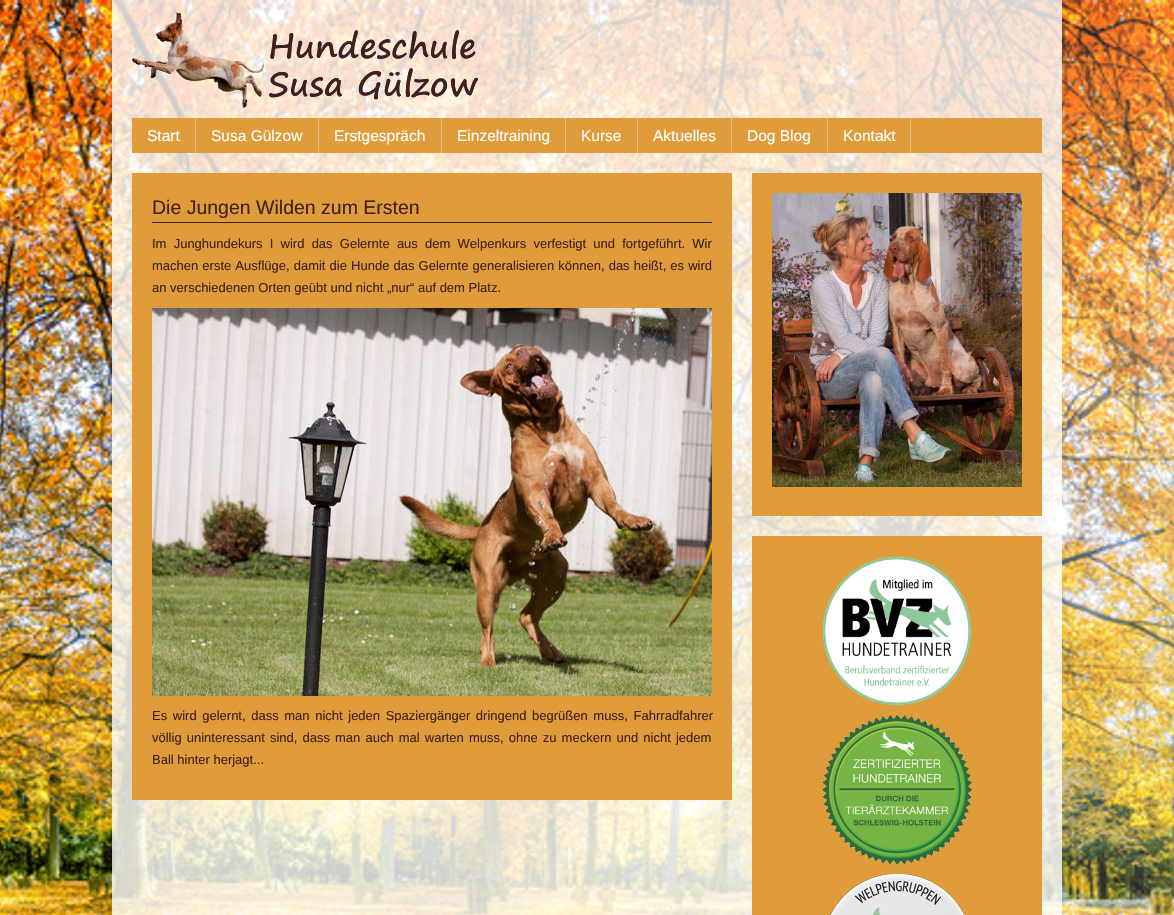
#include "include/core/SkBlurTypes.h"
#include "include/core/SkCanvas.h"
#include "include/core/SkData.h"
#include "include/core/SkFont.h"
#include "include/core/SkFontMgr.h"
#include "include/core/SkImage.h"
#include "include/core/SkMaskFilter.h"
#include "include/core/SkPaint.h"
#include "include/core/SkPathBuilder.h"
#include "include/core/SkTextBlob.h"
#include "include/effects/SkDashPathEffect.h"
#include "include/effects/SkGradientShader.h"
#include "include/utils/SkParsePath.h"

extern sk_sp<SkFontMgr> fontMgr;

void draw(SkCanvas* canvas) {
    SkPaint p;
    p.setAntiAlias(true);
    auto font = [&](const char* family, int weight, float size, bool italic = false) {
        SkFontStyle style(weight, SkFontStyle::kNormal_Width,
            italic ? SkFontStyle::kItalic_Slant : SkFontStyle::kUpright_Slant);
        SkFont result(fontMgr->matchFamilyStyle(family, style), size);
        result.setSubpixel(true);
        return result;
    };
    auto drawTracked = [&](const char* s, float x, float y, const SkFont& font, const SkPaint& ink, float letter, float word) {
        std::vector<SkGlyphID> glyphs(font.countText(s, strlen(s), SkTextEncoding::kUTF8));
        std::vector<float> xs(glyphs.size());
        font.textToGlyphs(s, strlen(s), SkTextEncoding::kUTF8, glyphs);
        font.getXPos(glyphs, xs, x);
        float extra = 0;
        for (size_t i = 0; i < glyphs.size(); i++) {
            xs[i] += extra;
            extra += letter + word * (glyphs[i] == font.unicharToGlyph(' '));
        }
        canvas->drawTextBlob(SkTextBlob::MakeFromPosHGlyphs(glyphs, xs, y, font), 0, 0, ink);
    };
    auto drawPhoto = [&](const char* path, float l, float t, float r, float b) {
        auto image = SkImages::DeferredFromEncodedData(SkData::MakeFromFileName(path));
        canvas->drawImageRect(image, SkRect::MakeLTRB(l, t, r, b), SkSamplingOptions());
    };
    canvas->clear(0xFFFFFFFF);
    drawPhoto("media/1.png", 0, 0, 1174, 915);
    p.setColor(0xCCFFFFFF);
    canvas->drawRect(SkRect::MakeLTRB(112, 0, 1062, 173), p);
    drawPhoto("media/2.png", 132, 10, 478, 108);
    p.setColor(0xFFE09B3A);
    canvas->drawRect(SkRect::MakeLTRB(132, 118, 1042, 153), p);
    p.setColor(0xFFEABC7B);
    canvas->drawRect(SkRect::MakeLTRB(195, 118, 196, 153), p);
    auto font1 = font("Liberation Sans", 400, 15.5f);
    p.setColor(0xFFFFFFFF);
    canvas->drawString("Start", 147, 141, font1, p);
    p.setColor(0xFFEABC7B);
    canvas->drawRect(SkRect::MakeLTRB(318, 118, 319, 153), p);
    p.setColor(0xFFFFFFFF);
    canvas->drawString("Susa Gülzow", 211, 141, font1, p);
    p.setColor(0xFFEABC7B);
    canvas->drawRect(SkRect::MakeLTRB(441, 118, 442, 153), p);
    p.setColor(0xFFFFFFFF);
    canvas->drawString("Erstgespräch", 334, 141, font1, p);
    p.setColor(0xFFEABC7B);
    canvas->drawRect(SkRect::MakeLTRB(565, 118, 566, 153), p);
    p.setColor(0xFFFFFFFF);
    canvas->drawString("Einzeltraining", 457, 141, font1, p);
    p.setColor(0xFFEABC7B);
    canvas->drawRect(SkRect::MakeLTRB(637, 118, 638, 153), p);
    p.setColor(0xFFFFFFFF);
    canvas->drawString("Kurse", 581, 141, font1, p);
    p.setColor(0xFFEABC7B);
    canvas->drawRect(SkRect::MakeLTRB(731, 118, 732, 153), p);
    p.setColor(0xFFFFFFFF);
    canvas->drawString("Aktuelles", 653, 141, font1, p);
    p.setColor(0xFFEABC7B);
    canvas->drawRect(SkRect::MakeLTRB(827, 118, 828, 153), p);
    p.setColor(0xFFFFFFFF);
    canvas->drawString("Dog Blog", 747, 141, font1, p);
    p.setColor(0xFFEABC7B);
    canvas->drawRect(SkRect::MakeLTRB(910, 118, 911, 153), p);
    p.setColor(0xFFFFFFFF);
    canvas->drawString("Kontakt", 843, 141, font1, p);
    {
        const struct { float l, t, r, b; SkColor color; } items[] = {
            {112, 173, 1062, 915, 0xCCFFFFFF},
            {132, 173, 732, 800, 0xFFE09B3A},
            {152, 222, 712, 223, 0xFF3F201D},
        };
        for (auto [l, t, r, b, color] : items) {
            p.setColor(color);
            canvas->drawRect(SkRect::MakeLTRB(l, t, r, b), p);
        }
    }
    auto font2 = font("Liberation Sans", 400, 19.5f);
    canvas->drawString("Die Jungen Wilden zum Ersten", 152, 214, font2, p);
    auto font3 = font("Liberation Sans", 400, 13);
    drawTracked("Im Junghundekurs I wird das Gelernte aus dem Welpenkurs verfestigt und fortgeführt. Wir", 152, 248, font3, p, 0, 3.6f);
    drawTracked("machen erste Ausflüge, damit die Hunde das Gelernte generalisieren können, das heißt, es wird", 152, 270, font3, p, 0, 0.5f);
    canvas->drawString("an verschiedenen Orten geübt und nicht „nur“ auf dem Platz.", 152, 292, font3, p);
    drawPhoto("media/3.png", 152, 308, 712, 696);
    drawTracked("Es wird gelernt, dass man nicht jeden Spaziergänger dringend begrüßen muss, Fahrradfahrer", 152, 720, font3, p, 0, 2);
    drawTracked("völlig uninteressant sind, dass man auch mal warten muss, ohne zu meckern und nicht jedem", 152, 742, font3, p, 0, 1.5f);
    canvas->drawString("Ball hinter herjagt...", 152, 764, font3, p);
    p.setColor(0xFFE09B3A);
    canvas->drawRect(SkRect::MakeLTRB(752, 173, 1042, 516), p);
    drawPhoto("media/4.png", 772, 193, 1022, 487);
    canvas->drawRect(SkRect::MakeLTRB(752, 536, 1042, 915), p);
    drawPhoto("media/5.png", 822, 556, 972, 706);
    drawPhoto("media/6.png", 822, 715, 972, 865);
    drawPhoto("media/7.png", 830, 874, 965, 915);
}
